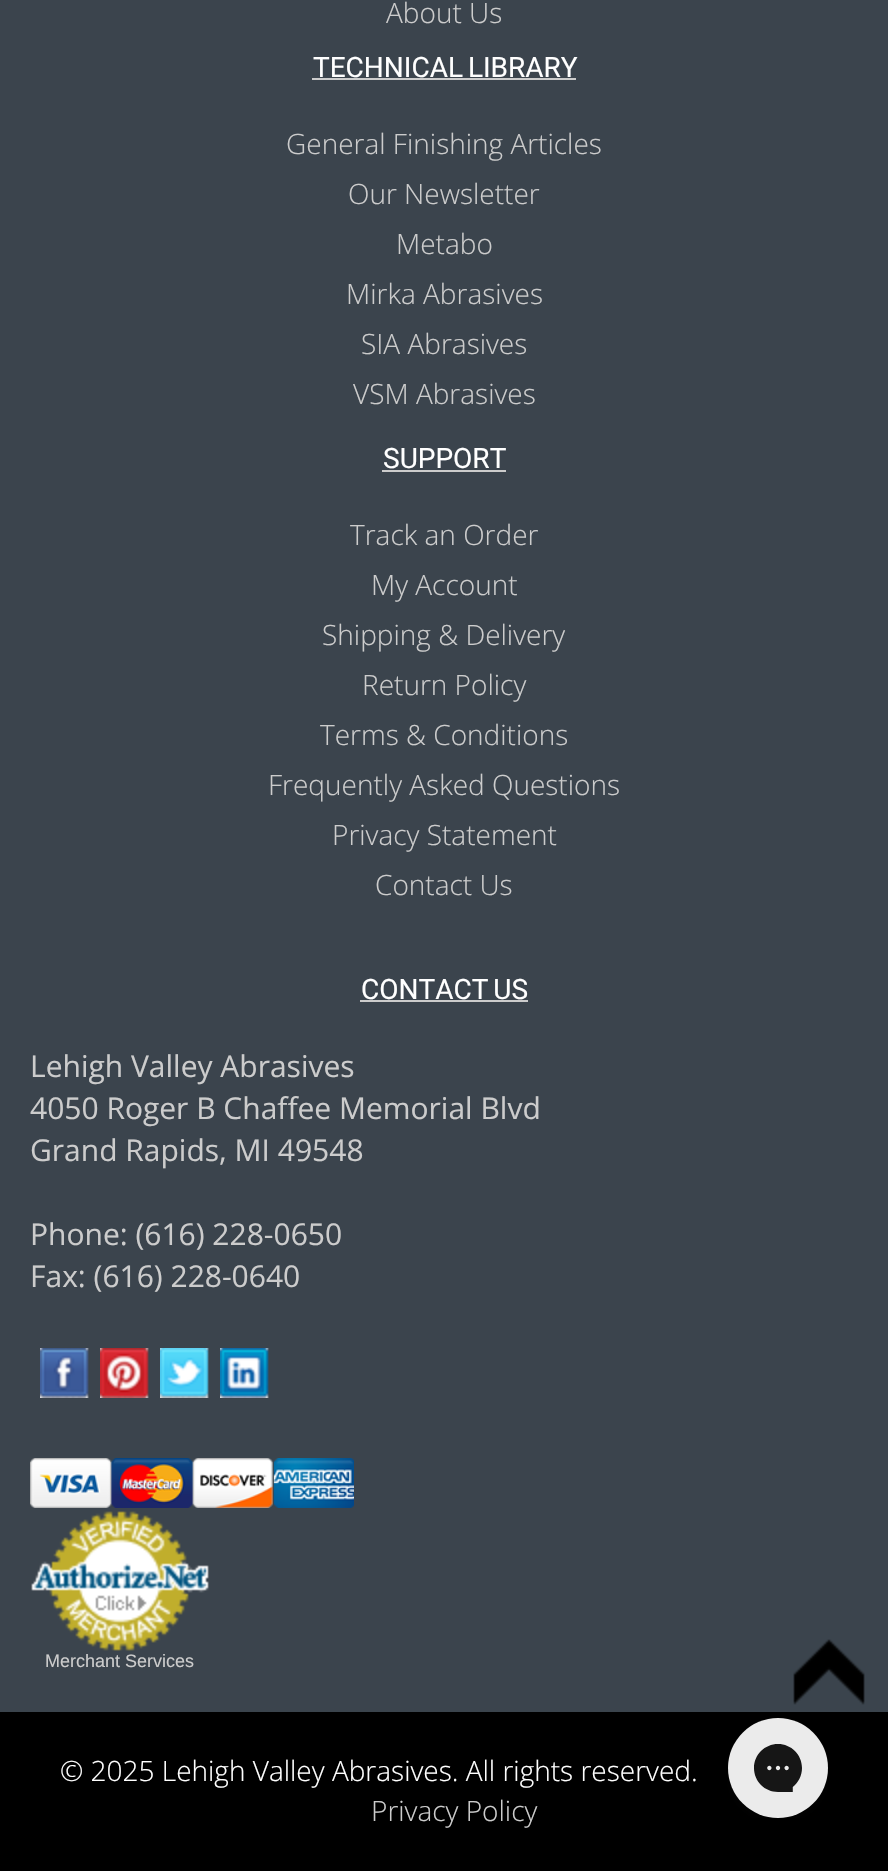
#include "include/core/SkBlurTypes.h"
#include "include/core/SkCanvas.h"
#include "include/core/SkData.h"
#include "include/core/SkFont.h"
#include "include/core/SkFontMgr.h"
#include "include/core/SkImage.h"
#include "include/core/SkMaskFilter.h"
#include "include/core/SkPaint.h"
#include "include/core/SkPathBuilder.h"
#include "include/core/SkTextBlob.h"
#include "include/effects/SkDashPathEffect.h"
#include "include/effects/SkGradientShader.h"
#include "include/utils/SkParsePath.h"

extern sk_sp<SkFontMgr> fontMgr;

void draw(SkCanvas* canvas) {
    SkPaint p;
    p.setAntiAlias(true);
    auto font = [&](const char* family, int weight, float size, bool italic = false) {
        SkFontStyle style(weight, SkFontStyle::kNormal_Width,
            italic ? SkFontStyle::kItalic_Slant : SkFontStyle::kUpright_Slant);
        SkFont result(fontMgr->matchFamilyStyle(family, style), size);
        result.setSubpixel(true);
        return result;
    };
    auto drawTracked = [&](const char* s, float x, float y, const SkFont& font, const SkPaint& ink, float letter, float word) {
        std::vector<SkGlyphID> glyphs(font.countText(s, strlen(s), SkTextEncoding::kUTF8));
        std::vector<float> xs(glyphs.size());
        font.textToGlyphs(s, strlen(s), SkTextEncoding::kUTF8, glyphs);
        font.getXPos(glyphs, xs, x);
        float extra = 0;
        for (size_t i = 0; i < glyphs.size(); i++) {
            xs[i] += extra;
            extra += letter + word * (glyphs[i] == font.unicharToGlyph(' '));
        }
        canvas->drawTextBlob(SkTextBlob::MakeFromPosHGlyphs(glyphs, xs, y, font), 0, 0, ink);
    };
    auto drawPhoto = [&](const char* path, float l, float t, float r, float b) {
        auto image = SkImages::DeferredFromEncodedData(SkData::MakeFromFileName(path));
        canvas->drawImageRect(image, SkRect::MakeLTRB(l, t, r, b), SkSamplingOptions());
    };
    canvas->clear(0xFF3B444D);
    auto font1 = font("Open Sans", 300, 28);
    p.setColor(0xFFCCCCCC);
    canvas->drawString("About Us", 386, 23, font1, p);
    auto font2 = font("Roboto", 400, 28);
    p.setColor(0xFFFFFFFF);
    drawTracked("TECHNICAL LIBRARY", 313, 77, font2, p, 0, -2);
    p.setColor(0xFFCCCCCC);
    canvas->drawRect(SkRect::MakeLTRB(312, 78, 576, 80), p);
    {
        const struct { const char* s; float x, y; } items[] = {
            {"General Finishing Articles", 286, 154},
            {"Our Newsletter", 348, 204},
            {"Metabo", 396, 254},
            {"Mirka Abrasives", 346, 304},
            {"SIA Abrasives", 361, 354},
            {"VSM Abrasives", 353, 404},
        };
        for (auto [s, x, y] : items) {
            canvas->drawString(s, x, y, font1, p);
        }
    }
    p.setColor(0xFFFFFFFF);
    canvas->drawString("SUPPORT", 383, 468, font2, p);
    p.setColor(0xFFCCCCCC);
    canvas->drawRect(SkRect::MakeLTRB(382, 470, 506, 472), p);
    {
        const struct { const char* s; float x, y; } items[] = {
            {"Track an Order", 350, 545},
            {"My Account", 371, 595},
            {"Shipping & Delivery", 322, 645},
            {"Return Policy", 362, 695},
            {"Terms & Conditions", 320, 745},
            {"Frequently Asked Questions", 268, 795},
            {"Privacy Statement", 332, 845},
            {"Contact Us", 375, 895},
        };
        for (auto [s, x, y] : items) {
            canvas->drawString(s, x, y, font1, p);
        }
    }
    p.setColor(0xFFFFFFFF);
    drawTracked("CONTACT US", 361, 999, font2, p, 0, -2);
    p.setColor(0xFFCCCCCC);
    canvas->drawRect(SkRect::MakeLTRB(360, 1000, 528, 1002), p);
    auto font3 = font("Open Sans", 400, 30);
    {
        const struct { const char* s; float x, y; } items[] = {
            {"Lehigh Valley Abrasives", 30, 1077},
            {"4050 Roger B Chaffee Memorial Blvd", 30, 1119},
            {"Grand Rapids, MI 49548", 30, 1161},
            {"Phone: (616) 228-0650", 30, 1245},
            {"Fax: (616) 228-0640", 30, 1287},
        };
        for (auto [s, x, y] : items) {
            canvas->drawString(s, x, y, font3, p);
        }
    }
    drawPhoto("media/1.png", 40, 1348, 89, 1398);
    drawPhoto("media/2.png", 100, 1348, 149, 1398);
    drawPhoto("media/3.png", 160, 1348, 209, 1398);
    drawPhoto("media/4.png", 220, 1348, 269, 1398);
    drawPhoto("media/5.png", 30, 1458, 354, 1508);
    drawPhoto("media/6.png", 31, 1511, 209, 1651);
    auto font4 = font("Liberation Sans", 400, 18);
    canvas->drawString("Merchant Services", 45, 1667, font4, p);
    drawPhoto("media/7.png", 793, 1639, 865, 1705);
    p.setColor(0xFF000000);
    canvas->drawRect(SkRect::MakeLTRB(0, 1712, 888, 1871), p);
    p.setColor(0xFFFFFFFF);
    canvas->drawString("© 2025 Lehigh Valley Abrasives. All rights reserved.", 60, 1781, font1, p);
    p.setColor(0xFFCCCCCC);
    canvas->drawString("Privacy Policy", 371, 1821, font1, p);
    drawPhoto("media/8.png", 727, 1718, 828, 1818);
}
